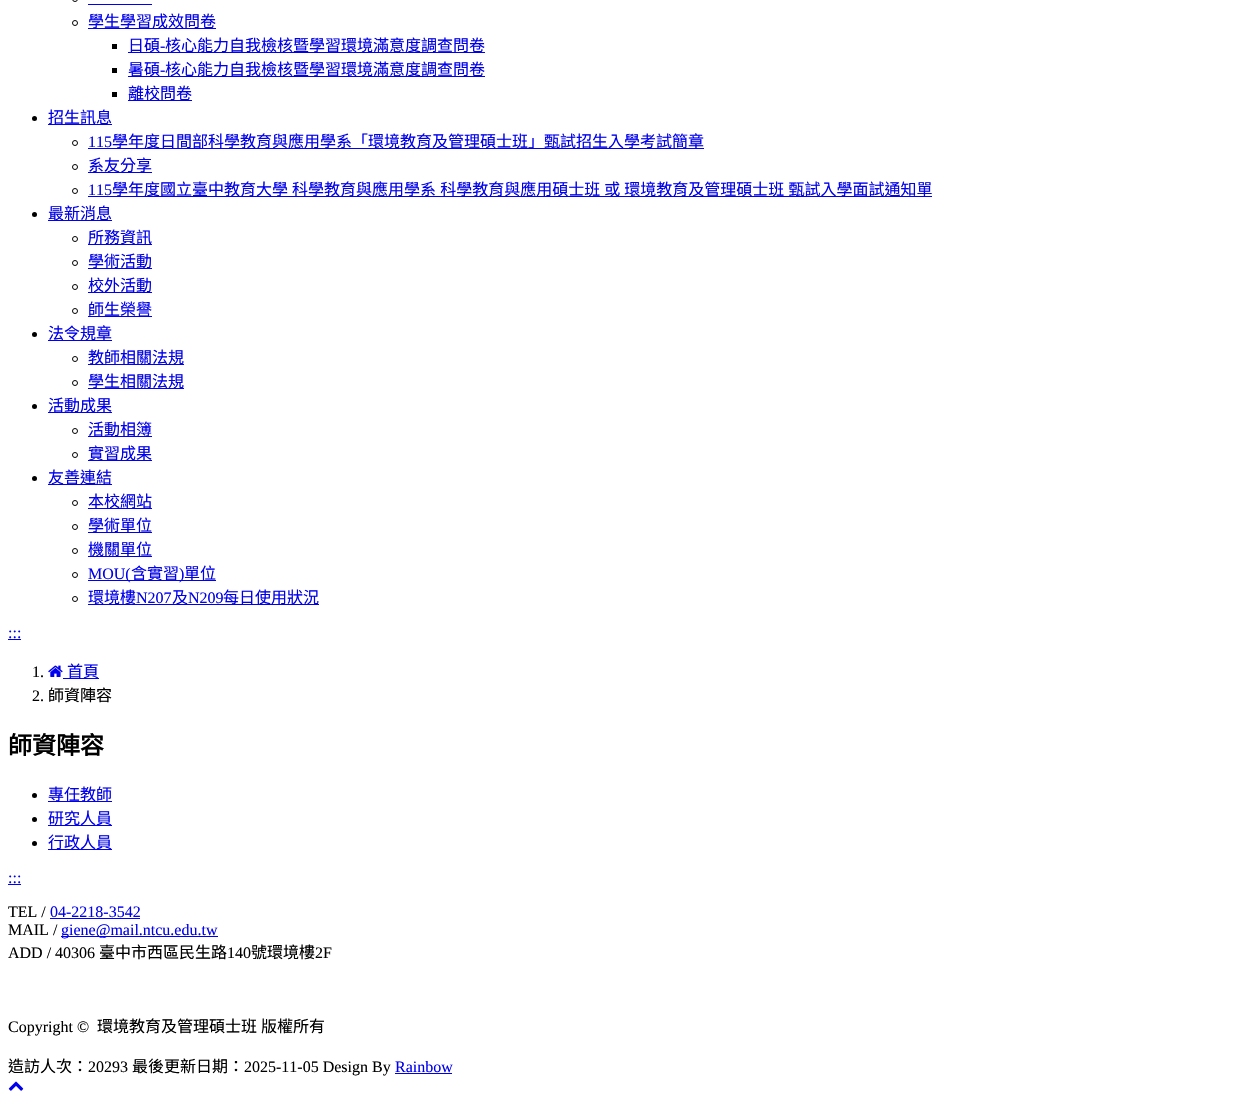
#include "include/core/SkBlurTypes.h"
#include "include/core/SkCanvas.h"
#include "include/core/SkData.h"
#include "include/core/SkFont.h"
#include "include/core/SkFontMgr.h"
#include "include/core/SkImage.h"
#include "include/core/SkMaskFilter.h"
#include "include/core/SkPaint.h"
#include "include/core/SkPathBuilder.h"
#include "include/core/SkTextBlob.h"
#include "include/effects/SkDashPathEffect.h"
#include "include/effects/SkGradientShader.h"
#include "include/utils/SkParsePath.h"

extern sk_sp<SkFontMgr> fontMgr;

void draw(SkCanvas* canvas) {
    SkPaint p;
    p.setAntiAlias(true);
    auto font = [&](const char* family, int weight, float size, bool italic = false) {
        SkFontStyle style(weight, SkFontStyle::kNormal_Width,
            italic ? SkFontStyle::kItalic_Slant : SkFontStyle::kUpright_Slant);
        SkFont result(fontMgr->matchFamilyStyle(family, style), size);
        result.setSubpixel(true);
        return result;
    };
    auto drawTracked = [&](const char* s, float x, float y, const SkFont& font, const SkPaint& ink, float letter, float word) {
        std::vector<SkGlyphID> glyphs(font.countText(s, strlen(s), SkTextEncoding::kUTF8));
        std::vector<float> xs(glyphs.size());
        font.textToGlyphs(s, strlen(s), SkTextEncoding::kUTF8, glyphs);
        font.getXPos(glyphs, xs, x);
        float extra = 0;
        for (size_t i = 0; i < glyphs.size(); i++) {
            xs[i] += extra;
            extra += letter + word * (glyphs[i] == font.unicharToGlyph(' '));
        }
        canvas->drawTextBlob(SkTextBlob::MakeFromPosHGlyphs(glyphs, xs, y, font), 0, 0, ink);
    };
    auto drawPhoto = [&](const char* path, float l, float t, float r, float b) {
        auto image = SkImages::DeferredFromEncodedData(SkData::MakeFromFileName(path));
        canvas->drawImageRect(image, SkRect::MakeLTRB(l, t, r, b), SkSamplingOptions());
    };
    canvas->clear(0xFFFFFFFF);
    p.setStyle(SkPaint::kStroke_Style);
    p.setStrokeWidth(1);
    p.setColor(0xFF000000);
    canvas->drawCircle(75, -1, 2.5f, p);
    p.setStyle(SkPaint::kFill_Style);
    p.setColor(0xFF0000EE);
    canvas->drawRect(SkRect::MakeLTRB(88, 4, 152, 5), p);
    p.setStyle(SkPaint::kStroke_Style);
    p.setColor(0xFF000000);
    canvas->drawCircle(75, 23, 2.5f, p);
    p.setStyle(SkPaint::kFill_Style);
    p.setColor(0xFF0000EE);
    canvas->drawRect(SkRect::MakeLTRB(88, 28, 216, 29), p);
    auto font1 = font("Noto Sans CJK TC", 400, 16);
    canvas->drawString("學生學習成效問卷", 88, 27, font1, p);
    p.setColor(0xFF000000);
    canvas->drawRect(SkRect::MakeLTRB(112, 44, 117, 49), p);
    p.setColor(0xFF0000EE);
    canvas->drawRect(SkRect::MakeLTRB(128, 52, 485, 53), p);
    canvas->drawString("日碩", 128, 51, font1, p);
    auto font2 = font("Liberation Serif", 400, 16);
    canvas->drawString("-", 160, 51, font2, p);
    canvas->drawString("核心能力自我檢核暨學習環境滿意度調查問卷", 165, 51, font1, p);
    p.setColor(0xFF000000);
    canvas->drawRect(SkRect::MakeLTRB(112, 68, 117, 73), p);
    p.setColor(0xFF0000EE);
    canvas->drawRect(SkRect::MakeLTRB(128, 76, 485, 77), p);
    canvas->drawString("暑碩", 128, 75, font1, p);
    canvas->drawString("-", 160, 75, font2, p);
    canvas->drawString("核心能力自我檢核暨學習環境滿意度調查問卷", 165, 75, font1, p);
    p.setColor(0xFF000000);
    canvas->drawRect(SkRect::MakeLTRB(112, 92, 117, 97), p);
    p.setColor(0xFF0000EE);
    canvas->drawRect(SkRect::MakeLTRB(128, 100, 192, 101), p);
    canvas->drawString("離校問卷", 128, 99, font1, p);
    p.setColor(0xFF000000);
    canvas->drawCircle(34.5f, 118.5f, 2.5f, p);
    p.setColor(0xFF0000EE);
    canvas->drawRect(SkRect::MakeLTRB(48, 124, 112, 125), p);
    canvas->drawString("招生訊息", 48, 123, font1, p);
    p.setStyle(SkPaint::kStroke_Style);
    p.setColor(0xFF000000);
    canvas->drawCircle(75, 143, 2.5f, p);
    p.setStyle(SkPaint::kFill_Style);
    p.setColor(0xFF0000EE);
    canvas->drawString("115", 88, 147, font2, p);
    canvas->drawRect(SkRect::MakeLTRB(88, 148, 704, 149), p);
    canvas->drawString("學年度日間部科學教育與應用學系「環境教育及管理碩士班」甄試招生入學考試簡章", 112, 147, font1, p);
    p.setStyle(SkPaint::kStroke_Style);
    p.setColor(0xFF000000);
    canvas->drawCircle(75, 167, 2.5f, p);
    p.setStyle(SkPaint::kFill_Style);
    p.setColor(0xFF0000EE);
    canvas->drawRect(SkRect::MakeLTRB(88, 172, 152, 173), p);
    canvas->drawString("系友分享", 88, 171, font1, p);
    p.setStyle(SkPaint::kStroke_Style);
    p.setColor(0xFF000000);
    canvas->drawCircle(75, 191, 2.5f, p);
    p.setStyle(SkPaint::kFill_Style);
    p.setColor(0xFF0000EE);
    canvas->drawString("115", 88, 195, font2, p);
    canvas->drawRect(SkRect::MakeLTRB(88, 196, 932, 197), p);
    drawTracked("學年度國立臺中教育大學 科學教育與應用學系 科學教育與應用碩士班 或 環境教育及管理碩士班 甄試入學面試通知單", 112, 195, font1, p, 0, 0.5f);
    p.setColor(0xFF000000);
    canvas->drawCircle(34.5f, 214.5f, 2.5f, p);
    p.setColor(0xFF0000EE);
    canvas->drawRect(SkRect::MakeLTRB(48, 220, 112, 221), p);
    canvas->drawString("最新消息", 48, 219, font1, p);
    p.setStyle(SkPaint::kStroke_Style);
    p.setColor(0xFF000000);
    canvas->drawCircle(75, 239, 2.5f, p);
    p.setStyle(SkPaint::kFill_Style);
    p.setColor(0xFF0000EE);
    canvas->drawRect(SkRect::MakeLTRB(88, 244, 152, 245), p);
    canvas->drawString("所務資訊", 88, 243, font1, p);
    p.setStyle(SkPaint::kStroke_Style);
    p.setColor(0xFF000000);
    canvas->drawCircle(75, 263, 2.5f, p);
    p.setStyle(SkPaint::kFill_Style);
    p.setColor(0xFF0000EE);
    canvas->drawRect(SkRect::MakeLTRB(88, 268, 152, 269), p);
    canvas->drawString("學術活動", 88, 267, font1, p);
    p.setStyle(SkPaint::kStroke_Style);
    p.setColor(0xFF000000);
    canvas->drawCircle(75, 287, 2.5f, p);
    p.setStyle(SkPaint::kFill_Style);
    p.setColor(0xFF0000EE);
    canvas->drawRect(SkRect::MakeLTRB(88, 292, 152, 293), p);
    canvas->drawString("校外活動", 88, 291, font1, p);
    p.setStyle(SkPaint::kStroke_Style);
    p.setColor(0xFF000000);
    canvas->drawCircle(75, 311, 2.5f, p);
    p.setStyle(SkPaint::kFill_Style);
    p.setColor(0xFF0000EE);
    canvas->drawRect(SkRect::MakeLTRB(88, 316, 152, 317), p);
    canvas->drawString("師生榮譽", 88, 315, font1, p);
    p.setColor(0xFF000000);
    canvas->drawCircle(34.5f, 334.5f, 2.5f, p);
    p.setColor(0xFF0000EE);
    canvas->drawRect(SkRect::MakeLTRB(48, 340, 112, 341), p);
    canvas->drawString("法令規章", 48, 339, font1, p);
    p.setStyle(SkPaint::kStroke_Style);
    p.setColor(0xFF000000);
    canvas->drawCircle(75, 359, 2.5f, p);
    p.setStyle(SkPaint::kFill_Style);
    p.setColor(0xFF0000EE);
    canvas->drawRect(SkRect::MakeLTRB(88, 364, 184, 365), p);
    canvas->drawString("教師相關法規", 88, 363, font1, p);
    p.setStyle(SkPaint::kStroke_Style);
    p.setColor(0xFF000000);
    canvas->drawCircle(75, 383, 2.5f, p);
    p.setStyle(SkPaint::kFill_Style);
    p.setColor(0xFF0000EE);
    canvas->drawRect(SkRect::MakeLTRB(88, 388, 184, 389), p);
    canvas->drawString("學生相關法規", 88, 387, font1, p);
    p.setColor(0xFF000000);
    canvas->drawCircle(34.5f, 406.5f, 2.5f, p);
    p.setColor(0xFF0000EE);
    canvas->drawRect(SkRect::MakeLTRB(48, 412, 112, 413), p);
    canvas->drawString("活動成果", 48, 411, font1, p);
    p.setStyle(SkPaint::kStroke_Style);
    p.setColor(0xFF000000);
    canvas->drawCircle(75, 431, 2.5f, p);
    p.setStyle(SkPaint::kFill_Style);
    p.setColor(0xFF0000EE);
    canvas->drawRect(SkRect::MakeLTRB(88, 436, 152, 437), p);
    canvas->drawString("活動相簿", 88, 435, font1, p);
    p.setStyle(SkPaint::kStroke_Style);
    p.setColor(0xFF000000);
    canvas->drawCircle(75, 455, 2.5f, p);
    p.setStyle(SkPaint::kFill_Style);
    p.setColor(0xFF0000EE);
    canvas->drawRect(SkRect::MakeLTRB(88, 460, 152, 461), p);
    canvas->drawString("實習成果", 88, 459, font1, p);
    p.setColor(0xFF000000);
    canvas->drawCircle(34.5f, 478.5f, 2.5f, p);
    p.setColor(0xFF0000EE);
    canvas->drawRect(SkRect::MakeLTRB(48, 484, 112, 485), p);
    canvas->drawString("友善連結", 48, 483, font1, p);
    p.setStyle(SkPaint::kStroke_Style);
    p.setColor(0xFF000000);
    canvas->drawCircle(75, 503, 2.5f, p);
    p.setStyle(SkPaint::kFill_Style);
    p.setColor(0xFF0000EE);
    canvas->drawRect(SkRect::MakeLTRB(88, 508, 152, 509), p);
    canvas->drawString("本校網站", 88, 507, font1, p);
    p.setStyle(SkPaint::kStroke_Style);
    p.setColor(0xFF000000);
    canvas->drawCircle(75, 527, 2.5f, p);
    p.setStyle(SkPaint::kFill_Style);
    p.setColor(0xFF0000EE);
    canvas->drawRect(SkRect::MakeLTRB(88, 532, 152, 533), p);
    canvas->drawString("學術單位", 88, 531, font1, p);
    p.setStyle(SkPaint::kStroke_Style);
    p.setColor(0xFF000000);
    canvas->drawCircle(75, 551, 2.5f, p);
    p.setStyle(SkPaint::kFill_Style);
    p.setColor(0xFF0000EE);
    canvas->drawRect(SkRect::MakeLTRB(88, 556, 152, 557), p);
    canvas->drawString("機關單位", 88, 555, font1, p);
    p.setStyle(SkPaint::kStroke_Style);
    p.setColor(0xFF000000);
    canvas->drawCircle(75, 575, 2.5f, p);
    p.setStyle(SkPaint::kFill_Style);
    p.setColor(0xFF0000EE);
    canvas->drawRect(SkRect::MakeLTRB(88, 580, 216, 581), p);
    canvas->drawString("MOU(", 88, 579, font2, p);
    canvas->drawString("含實習", 131, 579, font1, p);
    canvas->drawString(")", 179, 579, font2, p);
    canvas->drawString("單位", 184, 579, font1, p);
    p.setStyle(SkPaint::kStroke_Style);
    p.setColor(0xFF000000);
    canvas->drawCircle(75, 599, 2.5f, p);
    p.setStyle(SkPaint::kFill_Style);
    p.setColor(0xFF0000EE);
    canvas->drawRect(SkRect::MakeLTRB(88, 604, 319, 605), p);
    canvas->drawString("環境樓", 88, 603, font1, p);
    canvas->drawString("N207", 136, 603, font2, p);
    canvas->drawString("及", 172, 603, font1, p);
    canvas->drawString("N209", 188, 603, font2, p);
    canvas->drawString("每日使用狀況", 223, 603, font1, p);
    canvas->drawString(":::", 8, 638, font2, p);
    canvas->drawRect(SkRect::MakeLTRB(8, 639, 21, 640), p);
    p.setColor(0xFF000000);
    canvas->drawString("1.", 32, 677, font2, p);
    drawPhoto("media/1.png", 48, 665, 63, 677);
    p.setColor(0xFF0000EE);
    canvas->drawRect(SkRect::MakeLTRB(63, 678, 99, 679), p);
    canvas->drawString("首頁", 67, 677, font1, p);
    p.setColor(0xFF000000);
    canvas->drawString("2.", 32, 701, font2, p);
    canvas->drawString("師資陣容", 48, 701, font1, p);
    auto font3 = font("Noto Sans CJK TC", 700, 24);
    canvas->drawString("師資陣容", 8, 754, font3, p);
    canvas->drawCircle(34.5f, 795.5f, 2.5f, p);
    p.setColor(0xFF0000EE);
    canvas->drawRect(SkRect::MakeLTRB(48, 801, 112, 802), p);
    canvas->drawString("專任教師", 48, 800, font1, p);
    p.setColor(0xFF000000);
    canvas->drawCircle(34.5f, 819.5f, 2.5f, p);
    p.setColor(0xFF0000EE);
    canvas->drawRect(SkRect::MakeLTRB(48, 825, 112, 826), p);
    canvas->drawString("研究人員", 48, 824, font1, p);
    p.setColor(0xFF000000);
    canvas->drawCircle(34.5f, 843.5f, 2.5f, p);
    p.setColor(0xFF0000EE);
    canvas->drawRect(SkRect::MakeLTRB(48, 849, 112, 850), p);
    canvas->drawString("行政人員", 48, 848, font1, p);
    canvas->drawString(":::", 8, 883, font2, p);
    canvas->drawRect(SkRect::MakeLTRB(8, 884, 21, 885), p);
    p.setColor(0xFF000000);
    canvas->drawString("TEL /", 8, 917, font2, p);
    p.setColor(0xFF0000EE);
    canvas->drawString("04-2218-3542", 50, 917, font2, p);
    canvas->drawRect(SkRect::MakeLTRB(50, 918, 140, 919), p);
    p.setColor(0xFF000000);
    canvas->drawString("MAIL /", 8, 935, font2, p);
    p.setColor(0xFF0000EE);
    canvas->drawRect(SkRect::MakeLTRB(61, 936, 218, 937), p);
    canvas->drawString("giene@mail.ntcu.edu.tw", 61, 935, font2, p);
    p.setColor(0xFF000000);
    canvas->drawString("ADD / 40306", 8, 958, font2, p);
    canvas->drawString("臺中市西區民生路", 99, 958, font1, p);
    canvas->drawString("140", 227, 958, font2, p);
    canvas->drawString("號環境樓", 251, 958, font1, p);
    canvas->drawString("2F", 315, 958, font2, p);
    canvas->drawString("Copyright ©", 8, 1032, font2, p);
    {
        const struct { const char* s; float x, y; } items[] = {
            {"環境教育及管理碩士班", 97, 1032},
            {"版權所有", 261, 1032},
            {"造訪人次：", 8, 1072},
        };
        for (auto [s, x, y] : items) {
            canvas->drawString(s, x, y, font1, p);
        }
    }
    canvas->drawString("20293", 88, 1072, font2, p);
    canvas->drawString("最後更新日期：", 132, 1072, font1, p);
    canvas->drawString("2025-11-05 Design By", 244, 1072, font2, p);
    p.setColor(0xFF0000EE);
    canvas->drawString("Rainbow", 395, 1072, font2, p);
    canvas->drawRect(SkRect::MakeLTRB(395, 1073, 452, 1074), p);
    drawPhoto("media/2.png", 8, 1081, 24, 1091);
}
